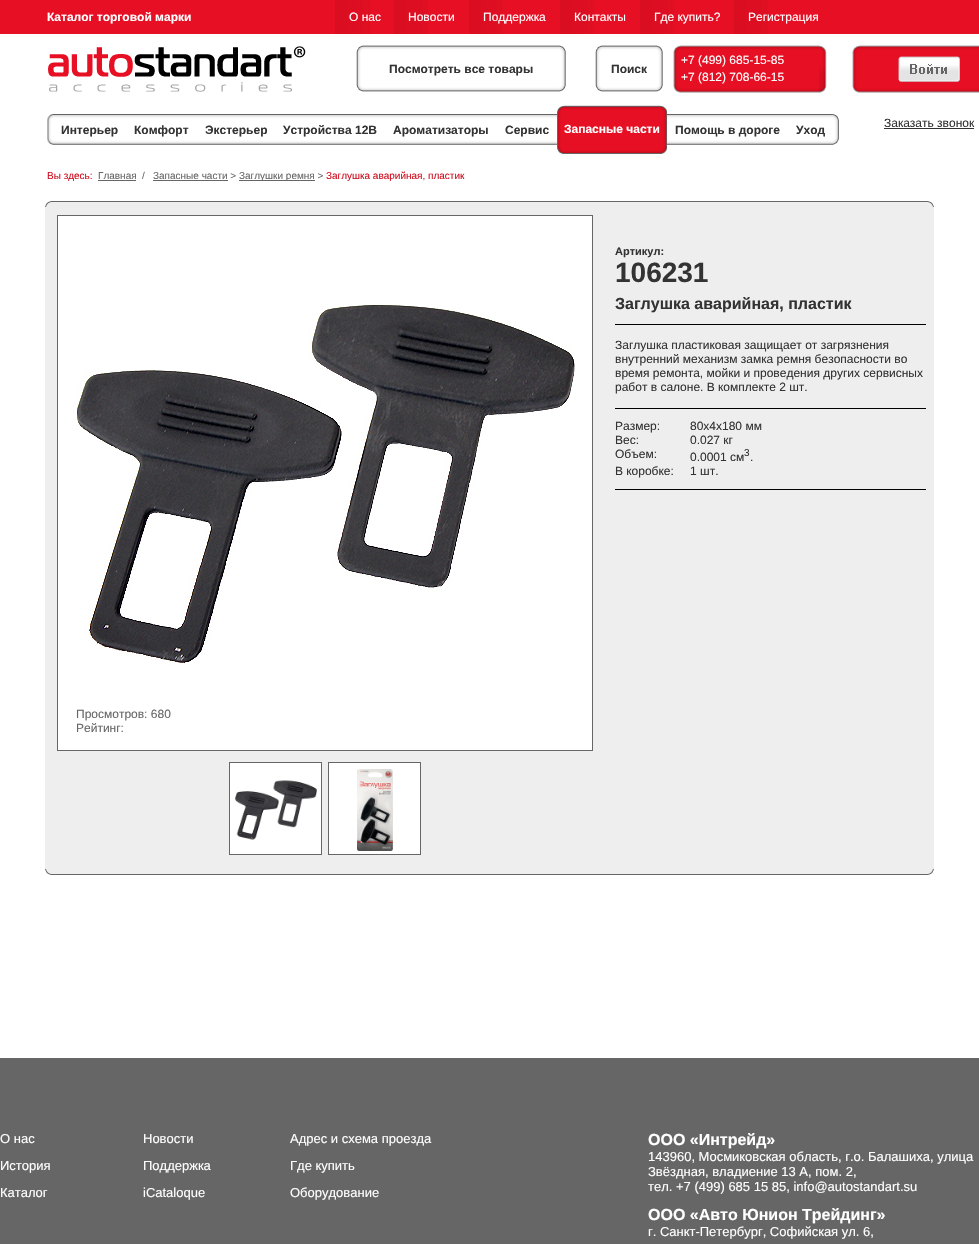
#include "include/core/SkBlurTypes.h"
#include "include/core/SkCanvas.h"
#include "include/core/SkData.h"
#include "include/core/SkFont.h"
#include "include/core/SkFontMgr.h"
#include "include/core/SkImage.h"
#include "include/core/SkMaskFilter.h"
#include "include/core/SkPaint.h"
#include "include/core/SkPathBuilder.h"
#include "include/core/SkTextBlob.h"
#include "include/effects/SkDashPathEffect.h"
#include "include/effects/SkGradientShader.h"
#include "include/utils/SkParsePath.h"

extern sk_sp<SkFontMgr> fontMgr;

void draw(SkCanvas* canvas) {
    SkPaint p;
    p.setAntiAlias(true);
    auto font = [&](const char* family, int weight, float size, bool italic = false) {
        SkFontStyle style(weight, SkFontStyle::kNormal_Width,
            italic ? SkFontStyle::kItalic_Slant : SkFontStyle::kUpright_Slant);
        SkFont result(fontMgr->matchFamilyStyle(family, style), size);
        result.setSubpixel(true);
        return result;
    };
    auto drawPhoto = [&](const char* path, float l, float t, float r, float b) {
        auto image = SkImages::DeferredFromEncodedData(SkData::MakeFromFileName(path));
        canvas->drawImageRect(image, SkRect::MakeLTRB(l, t, r, b), SkSamplingOptions());
    };
    canvas->clear(0xFFFFFFFF);
    p.setColor(0xFFE60F23);
    canvas->drawRect(SkRect::MakeLTRB(0, 0, 979, 34), p);
    auto font1 = font("Liberation Sans", 700, 12);
    p.setColor(0xFFFFFFFF);
    canvas->drawString("Каталог торговой марки", 47, 21, font1, p);
    drawPhoto("media/1.png", 335, 0, 370, 34);
    auto font2 = font("Liberation Sans", 400, 12);
    canvas->drawString("О нас", 349, 21, font2, p);
    drawPhoto("media/2.png", 394, 0, 428, 34);
    canvas->drawString("Новости", 408, 21, font2, p);
    drawPhoto("media/2.png", 469, 0, 503, 34);
    canvas->drawString("Поддержка", 483, 21, font2, p);
    drawPhoto("media/2.png", 560, 0, 594, 34);
    canvas->drawString("Контакты", 574, 21, font2, p);
    drawPhoto("media/2.png", 640, 0, 674, 34);
    canvas->drawString("Где купить?", 654, 21, font2, p);
    drawPhoto("media/2.png", 734, 0, 768, 34);
    canvas->drawString("Регистрация", 748, 21, font2, p);
    drawPhoto("media/3.png", 48, 46, 306, 92);
    drawPhoto("media/4.png", 356, 45, 363, 92);
    drawPhoto("media/5.png", 363, 45, 559, 92);
    p.setColor(0xFF333333);
    canvas->drawString("Посмотреть все товары", 389, 73, font1, p);
    drawPhoto("media/6.png", 559, 45, 566, 92);
    drawPhoto("media/4.png", 595, 45, 602, 92);
    drawPhoto("media/7.png", 602, 45, 656, 92);
    canvas->drawString("Поиск", 611, 73, font1, p);
    drawPhoto("media/6.png", 656, 45, 663, 92);
    drawPhoto("media/8.png", 673, 45, 681, 93);
    drawPhoto("media/9.png", 681, 45, 819, 93);
    p.setColor(0xFFFFFFFF);
    canvas->drawString("+7 (499) 685-15-85", 681, 64, font2, p);
    canvas->drawString("+7 (812) 708-66-15", 681, 81, font2, p);
    drawPhoto("media/10.png", 819, 45, 827, 93);
    drawPhoto("media/8.png", 852, 45, 860, 93);
    drawPhoto("media/11.png", 860, 45, 979, 93);
    drawPhoto("media/12.png", 898, 56, 960, 82);
    p.setColor(0xFF333333);
    canvas->drawString("Заказать звонок", 884, 127, font2, p);
    canvas->drawRect(SkRect::MakeLTRB(884, 128, 974, 129), p);
    drawPhoto("media/13.png", 47, 114, 53, 145);
    drawPhoto("media/14.png", 53, 114, 833, 145);
    {
        const struct { const char* s; float x, y; } items[] = {
            {"Интерьер", 61, 134},
            {"Комфорт", 134, 134},
            {"Экстерьер", 205, 134},
            {"Устройства 12В", 283, 134},
            {"Ароматизаторы", 393, 134},
            {"Сервис", 505, 134},
        };
        for (auto [s, x, y] : items) {
            canvas->drawString(s, x, y, font1, p);
        }
    }
    drawPhoto("media/15.png", 564, 105, 667, 154);
    drawPhoto("media/16.png", 557, 105, 564, 154);
    p.setColor(0xFFFFFFFF);
    canvas->drawString("Запасные части", 564, 133, font1, p);
    p.setColor(0xFF333333);
    canvas->drawString("Помощь в дороге", 675, 134, font1, p);
    canvas->drawString("Уход", 796, 134, font1, p);
    drawPhoto("media/17.png", 833, 114, 839, 145);
    auto font3 = font("Liberation Sans", 400, 10);
    p.setColor(0xFFCF0D1F);
    canvas->drawString("Вы здесь:", 47, 179, font3, p);
    p.setColor(0xFF666666);
    canvas->drawString("Главная", 98, 179, font3, p);
    canvas->drawRect(SkRect::MakeLTRB(98, 180, 136, 181), p);
    canvas->drawString("/", 142, 179, font3, p);
    canvas->drawString("Запасные части >", 153, 179, font3, p);
    canvas->drawRect(SkRect::MakeLTRB(153, 180, 228, 181), p);
    canvas->drawRect(SkRect::MakeLTRB(239, 180, 315, 181), p);
    canvas->drawString("Заглушки ремня >", 239, 179, font3, p);
    p.setColor(0xFFCF0D1F);
    canvas->drawString("Заглушка аварийная, пластик", 326, 179, font3, p);
    drawPhoto("media/18.png", 45, 201, 934, 207);
    p.setColor(0xFFEEEEEE);
    canvas->drawRect(SkRect::MakeLTRB(45, 207, 934, 869), p);
    auto font4 = font("Liberation Sans", 700, 11);
    p.setColor(0xFF333333);
    canvas->drawString("Артикул:", 615, 255, font4, p);
    auto font5 = font("Liberation Sans", 700, 28);
    canvas->drawString("106231", 615, 282, font5, p);
    auto font6 = font("Liberation Sans", 700, 16);
    canvas->drawString("Заглушка аварийная, пластик", 615, 309, font6, p);
    p.setColor(0xFF000000);
    canvas->drawRect(SkRect::MakeLTRB(615, 324, 926, 325), p);
    p.setColor(0xFF333333);
    {
        const struct { const char* s; float x, y; } items[] = {
            {"Заглушка пластиковая защищает от загрязнения", 615, 349},
            {"внутренний механизм замка ремня безопасности во", 615, 363},
            {"время ремонта, мойки и проведения других сервисных", 615, 377},
            {"работ в салоне. В комплекте 2 шт.", 615, 391},
        };
        for (auto [s, x, y] : items) {
            canvas->drawString(s, x, y, font2, p);
        }
    }
    p.setColor(0xFF000000);
    canvas->drawRect(SkRect::MakeLTRB(615, 408, 926, 409), p);
    p.setColor(0xFF333333);
    {
        const struct { const char* s; float x, y; } items[] = {
            {"Размер:", 615, 430},
            {"80х4х180 мм", 690, 430},
            {"Вес:", 615, 444},
            {"0.027 кг", 690, 444},
            {"Объем:", 615, 458},
            {"0.0001 cм", 690, 461},
        };
        for (auto [s, x, y] : items) {
            canvas->drawString(s, x, y, font2, p);
        }
    }
    canvas->drawString("3", 744, 456, font3, p);
    {
        const struct { const char* s; float x, y; } items[] = {
            {".", 750, 461},
            {"В коробке:", 615, 475},
            {"1 шт.", 690, 475},
        };
        for (auto [s, x, y] : items) {
            canvas->drawString(s, x, y, font2, p);
        }
    }
    p.setColor(0xFF000000);
    canvas->drawRect(SkRect::MakeLTRB(615, 489, 926, 490), p);
    p.setColor(0xFFFFFFFF);
    canvas->drawRect(SkRect::MakeLTRB(57.5f, 215.5f, 592.5f, 750.5f), p);
    p.setStyle(SkPaint::kStroke_Style);
    p.setStrokeWidth(1);
    p.setColor(0xFF666666);
    canvas->drawRect(SkRect::MakeLTRB(57.5f, 215.5f, 592.5f, 750.5f), p);
    drawPhoto("media/19.png", 76, 302, 575, 666);
    p.setStyle(SkPaint::kFill_Style);
    canvas->drawString("Просмотров: 680", 76, 718, font2, p);
    canvas->drawString("Рейтинг:", 76, 732, font2, p);
    p.setColor(0xFFFFFFFF);
    canvas->drawRect(SkRect::MakeLTRB(229.5f, 762.5f, 321.5f, 854.5f), p);
    p.setStyle(SkPaint::kStroke_Style);
    p.setColor(0xFF666666);
    canvas->drawRect(SkRect::MakeLTRB(229.5f, 762.5f, 321.5f, 854.5f), p);
    drawPhoto("media/20.png", 235, 780, 317, 840);
    p.setStyle(SkPaint::kFill_Style);
    p.setColor(0xFFFFFFFF);
    canvas->drawRect(SkRect::MakeLTRB(328.5f, 762.5f, 420.5f, 854.5f), p);
    p.setStyle(SkPaint::kStroke_Style);
    p.setColor(0xFF666666);
    canvas->drawRect(SkRect::MakeLTRB(328.5f, 762.5f, 420.5f, 854.5f), p);
    drawPhoto("media/21.png", 357, 769, 393, 851);
    drawPhoto("media/22.png", 45, 869, 934, 875);
    p.setStyle(SkPaint::kFill_Style);
    canvas->drawRect(SkRect::MakeLTRB(0, 1058, 979, 1244), p);
    auto font7 = font("Liberation Sans", 400, 13);
    p.setColor(0xFFFFFFFF);
    {
        const struct { const char* s; float x, y; } items[] = {
            {"О нас", 0, 1143},
            {"История", 0, 1170},
            {"Каталог", 0, 1197},
            {"Новости", 143, 1143},
            {"Поддержка", 143, 1170},
            {"iCataloque", 143, 1197},
            {"Адрес и схема проезда", 290, 1143},
            {"Где купить", 290, 1170},
            {"Оборудование", 290, 1197},
        };
        for (auto [s, x, y] : items) {
            canvas->drawString(s, x, y, font7, p);
        }
    }
    canvas->drawString("ООО «Интрейд»", 648, 1145, font6, p);
    {
        const struct { const char* s; float x, y; } items[] = {
            {"143960, Мосмиковская область, г.о. Балашиха, улица", 648, 1161},
            {"Звёздная, владиение 13 А, пом. 2,", 648, 1176},
            {"тел. +7 (499) 685 15 85, info@autostandart.su", 648, 1191},
        };
        for (auto [s, x, y] : items) {
            canvas->drawString(s, x, y, font7, p);
        }
    }
    canvas->drawString("ООО «Авто Юнион Трейдинг»", 648, 1220, font6, p);
    canvas->drawString("г. Санкт-Петербург, Софийская ул. 6,", 648, 1236, font7, p);
}
